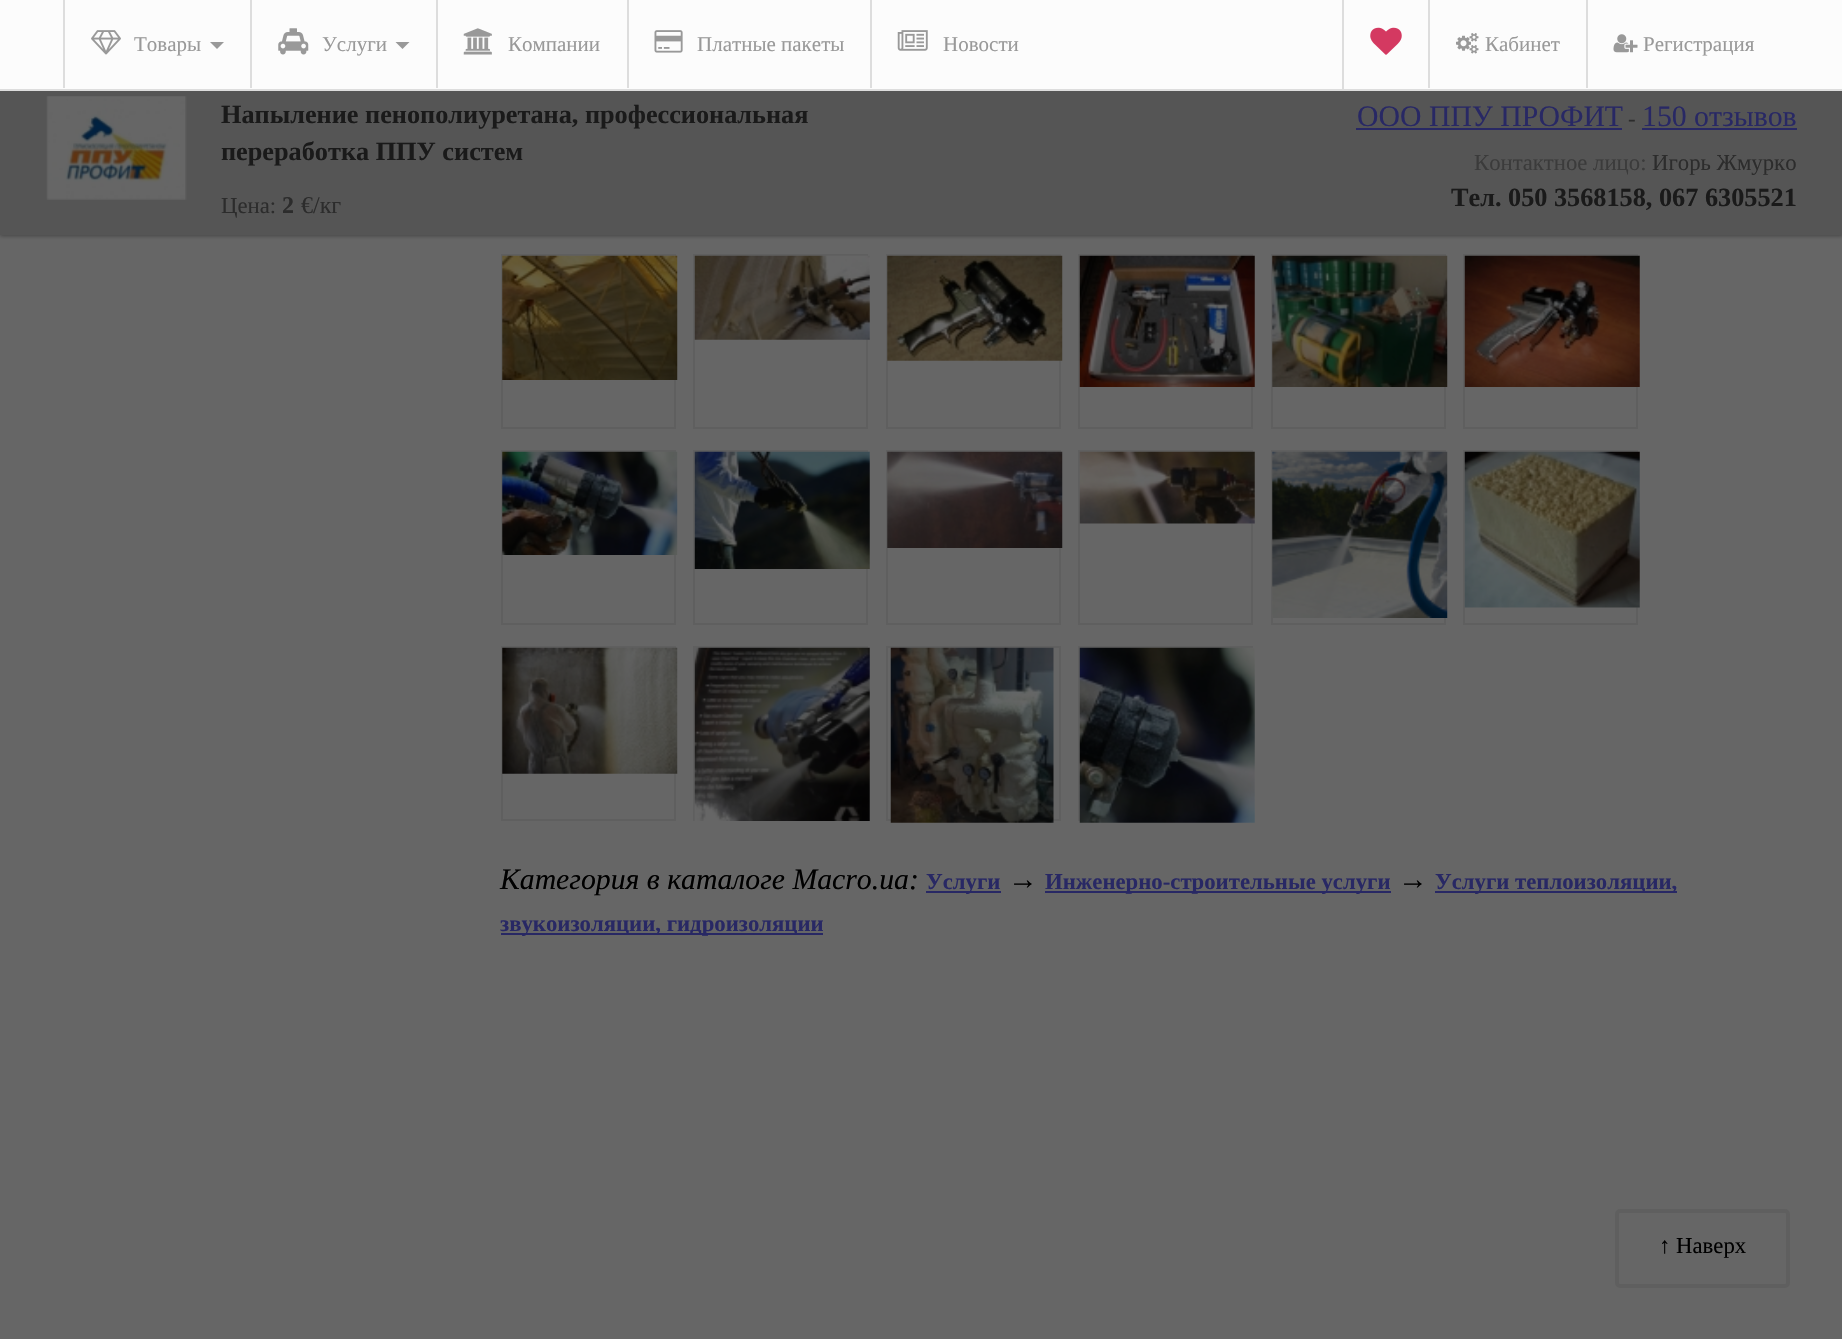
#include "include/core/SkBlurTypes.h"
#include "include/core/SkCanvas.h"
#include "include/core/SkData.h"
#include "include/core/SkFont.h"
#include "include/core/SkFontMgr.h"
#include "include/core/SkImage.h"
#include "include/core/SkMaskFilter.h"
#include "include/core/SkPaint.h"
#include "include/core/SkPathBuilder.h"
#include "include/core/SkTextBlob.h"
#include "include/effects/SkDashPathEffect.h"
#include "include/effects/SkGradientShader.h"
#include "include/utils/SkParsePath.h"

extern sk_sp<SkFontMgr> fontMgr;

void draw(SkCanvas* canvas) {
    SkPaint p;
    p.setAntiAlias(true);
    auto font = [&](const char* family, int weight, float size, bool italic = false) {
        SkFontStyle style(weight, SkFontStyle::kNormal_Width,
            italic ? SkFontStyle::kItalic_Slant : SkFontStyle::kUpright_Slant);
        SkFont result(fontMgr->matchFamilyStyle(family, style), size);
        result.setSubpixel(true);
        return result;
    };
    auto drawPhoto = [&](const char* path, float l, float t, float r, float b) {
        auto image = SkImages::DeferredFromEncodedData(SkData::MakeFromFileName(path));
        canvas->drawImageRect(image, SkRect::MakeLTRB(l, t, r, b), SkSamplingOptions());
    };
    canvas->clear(0xFF666666);
    p.setColor(0xFF444444);
    p.setMaskFilter(SkMaskFilter::MakeBlur(kNormal_SkBlurStyle, 2));
    canvas->drawRect(SkRect::MakeLTRB(0, 89, 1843, 236), p);
    p.setMaskFilter(nullptr);
    {
        const struct { float l, t, r, b; SkColor color; } items[] = {
            {0, 0, 1842, 89, 0xFFFCFCFC},
            {0, 89, 1842, 91, 0xFFDDDDDD},
            {63, 0, 65, 88, 0xFFDDDDDD},
        };
        for (auto [l, t, r, b, color] : items) {
            p.setColor(color);
            canvas->drawRect(SkRect::MakeLTRB(l, t, r, b), p);
        }
    }
    drawPhoto("media/1.png", 91, 30, 121, 55);
    auto font1 = font("Liberation Serif", 400, 21);
    p.setColor(0xFF999999);
    canvas->drawString("Товары", 134, 51, font1, p);
    canvas->drawPath(SkPathBuilder().moveTo(210, 42).lineTo(224, 42).lineTo(217, 49).close().detach(), p);
    p.setColor(0xFFDDDDDD);
    canvas->drawRect(SkRect::MakeLTRB(250, 0, 252, 88), p);
    drawPhoto("media/2.png", 278, 28, 309, 55);
    p.setColor(0xFF999999);
    canvas->drawString("Услуги", 322, 51, font1, p);
    canvas->drawPath(SkPathBuilder().moveTo(395.5f, 42).lineTo(409.5f, 42).lineTo(402.5f, 49).close().detach(), p);
    p.setColor(0xFFDDDDDD);
    canvas->drawRect(SkRect::MakeLTRB(436, 0, 438, 88), p);
    drawPhoto("media/3.png", 463, 28, 492, 55);
    p.setColor(0xFF999999);
    canvas->drawString("Компании", 508, 51, font1, p);
    p.setColor(0xFFDDDDDD);
    canvas->drawRect(SkRect::MakeLTRB(627, 0, 629, 88), p);
    drawPhoto("media/4.png", 654, 30, 683, 53);
    p.setColor(0xFF999999);
    canvas->drawString("Платные пакеты", 697, 51, font1, p);
    p.setColor(0xFFDDDDDD);
    canvas->drawRect(SkRect::MakeLTRB(870, 0, 872, 88), p);
    drawPhoto("media/5.png", 897, 30, 928, 51);
    p.setColor(0xFF999999);
    canvas->drawString("Новости", 943, 51, font1, p);
    p.setColor(0xFFDDDDDD);
    canvas->drawRect(SkRect::MakeLTRB(1342, 0, 1344, 89), p);
    drawPhoto("media/6.png", 1370, 27, 1402, 55);
    canvas->drawRect(SkRect::MakeLTRB(1428, 0, 1430, 88), p);
    drawPhoto("media/7.png", 1456, 33, 1479, 54);
    p.setColor(0xFF999999);
    canvas->drawString("Кабинет", 1485, 51, font1, p);
    p.setColor(0xFFDDDDDD);
    canvas->drawRect(SkRect::MakeLTRB(1586, 0, 1588, 88), p);
    drawPhoto("media/8.png", 1613, 34, 1638, 53);
    p.setColor(0xFF999999);
    canvas->drawString("Регистрация", 1643, 51, font1, p);
    p.setColor(0xFF555555);
    canvas->drawRect(SkRect::MakeLTRB(0, 91, 1842, 235), p);
    drawPhoto("media/9.png", 46, 96, 187, 200);
    auto font2 = font("Liberation Serif", 700, 26.25f);
    p.setColor(0xFF1A1A1A);
    canvas->drawString("Напыление пенополиуретана, профессиональная", 221, 123, font2, p);
    canvas->drawString("переработка ППУ систем", 221, 160, font2, p);
    auto font3 = font("Liberation Serif", 400, 22.75f);
    p.setColor(0xFF2C2C2C);
    canvas->drawString("Цена:", 221, 213, font3, p);
    auto font4 = font("Liberation Serif", 700, 24);
    canvas->drawString("2", 282, 213, font4, p);
    auto font5 = font("Liberation Serif", 400, 24);
    canvas->drawString("€/кг", 301, 213, font5, p);
    auto font6 = font("Liberation Serif", 400, 29.75f);
    p.setColor(0xFF282864);
    canvas->drawString("ООО ППУ ПРОФИТ", 1357, 126, font6, p);
    canvas->drawRect(SkRect::MakeLTRB(1356, 128, 1622, 130), p);
    p.setColor(0xFF2C2C2C);
    canvas->drawString("-", 1628, 126, font3, p);
    p.setColor(0xFF282864);
    canvas->drawRect(SkRect::MakeLTRB(1642, 128, 1797, 130), p);
    canvas->drawString("150 отзывов", 1642, 126, font6, p);
    p.setColor(0xFF3B3B3B);
    canvas->drawString("Контактное лицо:", 1474, 170, font3, p);
    p.setColor(0xFF2C2C2C);
    canvas->drawString("Игорь Жмурко", 1652, 170, font3, p);
    p.setColor(0xFF1A1A1A);
    canvas->drawString("Тел. 050 3568158, 067 6305521", 1451, 206, font2, p);
    p.setStyle(SkPaint::kStroke_Style);
    p.setStrokeWidth(2);
    p.setColor(0xFF5F5F5F);
    canvas->drawRect(SkRect::MakeLTRB(502, 255, 675, 428), p);
    drawPhoto("media/10.png", 502, 255, 678, 380);
    canvas->drawRect(SkRect::MakeLTRB(694, 255, 867, 428), p);
    drawPhoto("media/11.png", 694, 255, 870, 340);
    canvas->drawRect(SkRect::MakeLTRB(887, 255, 1060, 428), p);
    drawPhoto("media/12.png", 887, 255, 1063, 361);
    canvas->drawRect(SkRect::MakeLTRB(1079, 255, 1252, 428), p);
    drawPhoto("media/13.png", 1079, 255, 1255, 387);
    canvas->drawRect(SkRect::MakeLTRB(1272, 255, 1445, 428), p);
    drawPhoto("media/14.png", 1272, 255, 1448, 387);
    canvas->drawRect(SkRect::MakeLTRB(1464, 255, 1637, 428), p);
    drawPhoto("media/15.png", 1464, 255, 1640, 387);
    canvas->drawRect(SkRect::MakeLTRB(502, 451, 675, 624), p);
    drawPhoto("media/16.png", 502, 451, 678, 555);
    canvas->drawRect(SkRect::MakeLTRB(694, 451, 867, 624), p);
    drawPhoto("media/17.png", 694, 451, 870, 569);
    canvas->drawRect(SkRect::MakeLTRB(887, 451, 1060, 624), p);
    drawPhoto("media/18.png", 887, 451, 1063, 548);
    canvas->drawRect(SkRect::MakeLTRB(1079, 451, 1252, 624), p);
    drawPhoto("media/19.png", 1079, 451, 1255, 524);
    canvas->drawRect(SkRect::MakeLTRB(1272, 451, 1445, 624), p);
    drawPhoto("media/20.png", 1272, 451, 1448, 618);
    canvas->drawRect(SkRect::MakeLTRB(1464, 451, 1637, 624), p);
    drawPhoto("media/21.png", 1464, 451, 1640, 608);
    canvas->drawRect(SkRect::MakeLTRB(502, 647, 675, 820), p);
    drawPhoto("media/22.png", 502, 647, 678, 774);
    canvas->drawRect(SkRect::MakeLTRB(694, 647, 867, 820), p);
    drawPhoto("media/23.png", 694, 647, 870, 821);
    canvas->drawRect(SkRect::MakeLTRB(887, 647, 1060, 820), p);
    drawPhoto("media/24.png", 890, 647, 1054, 823);
    canvas->drawRect(SkRect::MakeLTRB(1079, 647, 1252, 820), p);
    drawPhoto("media/25.png", 1079, 647, 1255, 823);
    auto font7 = font("Liberation Serif", 400, 29.75f, true);
    p.setStyle(SkPaint::kFill_Style);
    p.setColor(0xFF000000);
    canvas->drawString("Категория в каталоге Macro.ua:", 500, 889, font7, p);
    p.setColor(0xFF282864);
    canvas->drawRect(SkRect::MakeLTRB(926, 891, 1001, 893), p);
    auto font8 = font("Liberation Serif", 700, 22.75f);
    canvas->drawString("Услуги", 926, 889, font8, p);
    auto font9 = font("Liberation Serif", 700, 29.75f);
    p.setColor(0xFF000000);
    canvas->drawString("→", 1008, 889, font9, p);
    p.setColor(0xFF282864);
    canvas->drawRect(SkRect::MakeLTRB(1045, 891, 1391, 893), p);
    canvas->drawString("Инженерно-строительные услуги", 1045, 889, font8, p);
    p.setColor(0xFF000000);
    canvas->drawString("→", 1398, 889, font9, p);
    p.setColor(0xFF282864);
    canvas->drawRect(SkRect::MakeLTRB(1435, 891, 1677, 893), p);
    canvas->drawString("Услуги теплоизоляции,", 1435, 889, font8, p);
    canvas->drawRect(SkRect::MakeLTRB(501, 933, 823, 935), p);
    canvas->drawString("звукоизоляции, гидроизоляции", 500, 931, font8, p);
    p.setStyle(SkPaint::kStroke_Style);
    p.setStrokeWidth(4);
    p.setColor(0xFF5F5F5F);
    canvas->drawRoundRect(SkRect::MakeLTRB(1617, 1211, 1788, 1286), 3, 3, p);
    p.setStyle(SkPaint::kFill_Style);
    p.setColor(0xFF000000);
    canvas->drawString("↑ Наверх", 1659, 1253, font3, p);
}
